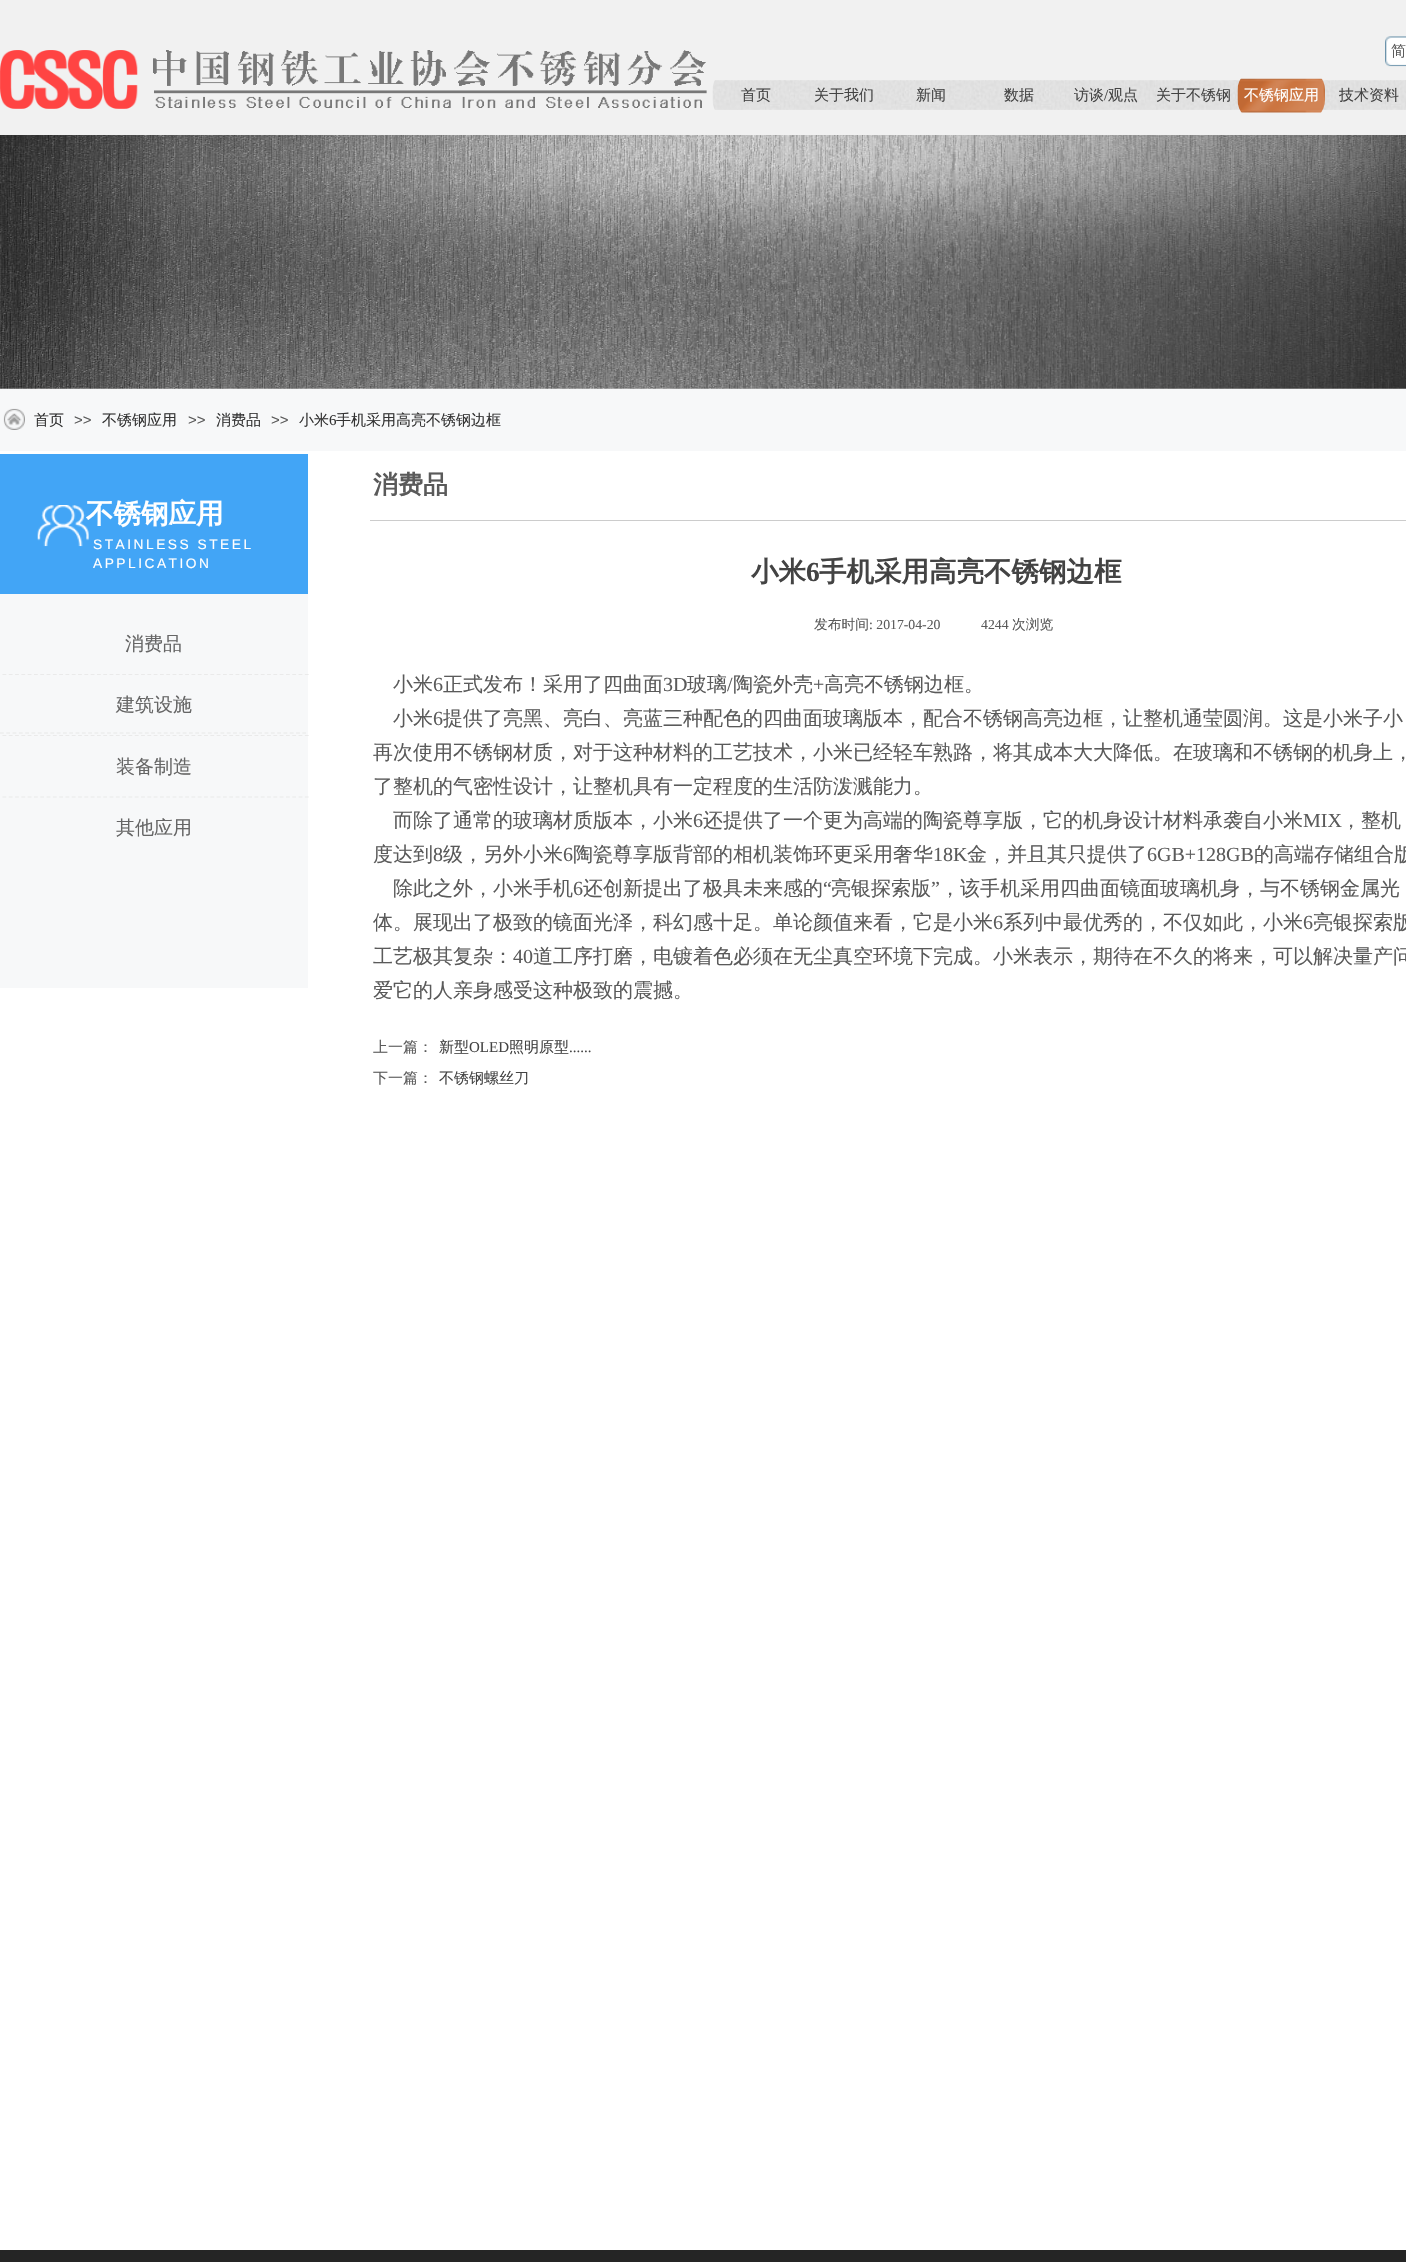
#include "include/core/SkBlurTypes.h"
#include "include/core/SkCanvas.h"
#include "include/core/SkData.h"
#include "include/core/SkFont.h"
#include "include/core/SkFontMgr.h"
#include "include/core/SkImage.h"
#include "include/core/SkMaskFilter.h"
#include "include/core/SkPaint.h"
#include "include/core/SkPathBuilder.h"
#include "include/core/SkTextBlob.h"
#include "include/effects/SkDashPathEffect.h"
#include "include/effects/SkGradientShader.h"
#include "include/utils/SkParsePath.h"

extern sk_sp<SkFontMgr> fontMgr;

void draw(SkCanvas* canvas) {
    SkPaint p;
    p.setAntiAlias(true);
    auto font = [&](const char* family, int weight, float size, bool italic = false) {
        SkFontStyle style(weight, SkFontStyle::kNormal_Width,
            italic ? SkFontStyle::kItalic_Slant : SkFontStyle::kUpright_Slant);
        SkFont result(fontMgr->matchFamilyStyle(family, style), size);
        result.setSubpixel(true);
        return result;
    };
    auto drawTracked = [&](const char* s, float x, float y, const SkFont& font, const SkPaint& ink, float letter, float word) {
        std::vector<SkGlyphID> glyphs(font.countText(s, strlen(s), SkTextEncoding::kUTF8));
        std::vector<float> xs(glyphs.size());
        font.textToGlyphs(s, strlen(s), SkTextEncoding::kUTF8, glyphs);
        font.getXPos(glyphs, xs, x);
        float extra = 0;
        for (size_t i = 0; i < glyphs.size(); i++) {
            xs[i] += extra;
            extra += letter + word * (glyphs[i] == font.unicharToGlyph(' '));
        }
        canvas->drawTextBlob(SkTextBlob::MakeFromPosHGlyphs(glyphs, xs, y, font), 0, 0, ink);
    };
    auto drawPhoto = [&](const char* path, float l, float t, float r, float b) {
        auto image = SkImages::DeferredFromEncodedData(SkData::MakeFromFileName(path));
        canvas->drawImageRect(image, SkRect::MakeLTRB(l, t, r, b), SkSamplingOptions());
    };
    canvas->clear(0xFFFFFFFF);
    p.setColor(0xFFF1F1F1);
    canvas->drawRect(SkRect::MakeLTRB(0, 0, 1406, 135), p);
    drawPhoto("media/1.png", 0, 50, 707, 109);
    drawPhoto("media/2.png", 1385, 36, 1406, 67);
    auto font1 = font("WenQuanYi Zen Hei", 500, 15);
    p.setColor(0xFF5A5A5A);
    canvas->drawString("简", 1391, 56, font1, p);
    drawPhoto("media/3.png", 712, 80, 1406, 110);
    p.setColor(0xFF434343);
    {
        const struct { const char* s; float x, y; } items[] = {
            {"首页", 741, 100},
            {"关于我们", 814, 100},
            {"新闻", 916, 100},
            {"数据", 1004, 100},
            {"访谈", 1074, 100},
        };
        for (auto [s, x, y] : items) {
            canvas->drawString(s, x, y, font1, p);
        }
    }
    auto font2 = font("Liberation Serif", 400, 15);
    canvas->drawString("/", 1104, 100, font2, p);
    canvas->drawString("观点", 1108, 100, font1, p);
    canvas->drawString("关于不锈钢", 1156, 100, font1, p);
    drawPhoto("media/4.png", 1237, 78, 1325, 113);
    p.setColor(0xFFFFFFFF);
    canvas->drawString("不锈钢应用", 1244, 100, font1, p);
    p.setColor(0xFF434343);
    canvas->drawString("技术资料", 1339, 100, font1, p);
    drawPhoto("media/5.png", 0, 135, 1406, 389);
    p.setColor(0xFFF7F8F9);
    canvas->drawRect(SkRect::MakeLTRB(0, 389, 1406, 451), p);
    drawPhoto("media/6.png", 3, 408, 25, 430);
    p.setColor(0xFF333333);
    canvas->drawString("首页", 34, 425, font1, p);
    auto font3 = font("Liberation Sans", 400, 15);
    p.setColor(0xFF5A5A5A);
    canvas->drawString(">>", 74, 425, font3, p);
    p.setColor(0xFF333333);
    canvas->drawString("不锈钢应用", 102, 425, font1, p);
    p.setColor(0xFF5A5A5A);
    canvas->drawString(">>", 188, 425, font3, p);
    p.setColor(0xFF333333);
    canvas->drawString("消费品", 216, 425, font1, p);
    p.setColor(0xFF5A5A5A);
    canvas->drawString(">>", 271, 425, font3, p);
    p.setColor(0xFF333333);
    canvas->drawString("小米", 299, 425, font1, p);
    canvas->drawString("6", 329, 425, font2, p);
    canvas->drawString("手机采用高亮不锈钢边框", 336, 425, font1, p);
    auto font4 = font("WenQuanYi Zen Hei", 700, 25);
    p.setColor(0xFF5A5A5A);
    canvas->drawString("消费品", 373, 493, font4, p);
    p.setColor(0xFF42A5F6);
    canvas->drawRect(SkRect::MakeLTRB(0, 454, 308, 594), p);
    auto font5 = font("WenQuanYi Zen Hei", 700, 27.5f);
    p.setColor(0xFFFFFFFF);
    canvas->drawString("不锈钢应用", 86, 523, font5, p);
    drawPhoto("media/7.png", 37, 505, 89, 547);
    p.setColor(0xFFF7F8F9);
    canvas->drawRect(SkRect::MakeLTRB(0, 594, 308, 988), p);
    auto font6 = font("Liberation Sans", 400, 13.75f);
    p.setColor(0xFFFFFFFF);
    drawTracked("STAINLESS STEEL", 93, 549, font6, p, 2.5f, 0);
    drawTracked("APPLICATION", 93, 568, font6, p, 2.5f, 0);
    p.setStyle(SkPaint::kStroke_Style);
    p.setStrokeWidth(1.2f);
    p.setColor(0xFFEAEAEA);
    p.setPathEffect(SkDashPathEffect::Make({{3.75f, 2.55f}}, 0));
    canvas->drawPath(SkPathBuilder().moveTo(2.5f, 674.5f).lineTo(309, 674.5f).detach(), p);
    p.setPathEffect(nullptr);
    auto font7 = font("WenQuanYi Zen Hei", 500, 19);
    p.setStyle(SkPaint::kFill_Style);
    p.setColor(0xFF666666);
    canvas->drawString("消费品", 125, 650, font7, p);
    p.setStyle(SkPaint::kStroke_Style);
    p.setColor(0xFFEAEAEA);
    p.setPathEffect(SkDashPathEffect::Make({{3.75f, 2.55f}}, 0));
    canvas->drawPath(SkPathBuilder().moveTo(2.5f, 735.5f).lineTo(309, 735.5f).detach(), p);
    p.setPathEffect(nullptr);
    p.setStyle(SkPaint::kFill_Style);
    p.setColor(0xFF666666);
    canvas->drawString("建筑设施", 116, 711, font7, p);
    p.setStyle(SkPaint::kStroke_Style);
    p.setColor(0xFFEAEAEA);
    p.setPathEffect(SkDashPathEffect::Make({{3.75f, 2.55f}}, 0));
    canvas->drawPath(SkPathBuilder().moveTo(2.5f, 797).lineTo(309, 797).detach(), p);
    p.setPathEffect(nullptr);
    p.setStyle(SkPaint::kFill_Style);
    p.setColor(0xFF666666);
    canvas->drawString("装备制造", 116, 773, font7, p);
    canvas->drawString("其他应用", 116, 834, font7, p);
    p.setStyle(SkPaint::kStroke_Style);
    p.setColor(0xFFE8E8E8);
    p.setPathEffect(SkDashPathEffect::Make({{3.75f, 2.55f}}, 0));
    canvas->drawPath(SkPathBuilder().moveTo(0, 733).lineTo(306, 733).detach(), p);
    p.setPathEffect(nullptr);
    p.setStyle(SkPaint::kFill_Style);
    p.setColor(0xFFCCCCCC);
    canvas->drawRect(SkRect::MakeLTRB(370, 520, 1406, 521), p);
    p.setColor(0xFF434343);
    canvas->drawString("小米", 751, 581, font5, p);
    auto font8 = font("Liberation Serif", 700, 27.5f);
    canvas->drawString("6", 806, 581, font8, p);
    canvas->drawString("手机采用高亮不锈钢边框", 819, 581, font5, p);
    auto font9 = font("WenQuanYi Zen Hei", 500, 13.75f);
    p.setColor(0xFF5A5A5A);
    canvas->drawString("发布时间", 814, 629, font9, p);
    auto font10 = font("Liberation Serif", 400, 13.75f);
    canvas->drawString(": 2017-04-20", 869, 629, font10, p);
    canvas->drawString("4244", 981, 629, font10, p);
    canvas->drawString("次浏览", 1012, 629, font9, p);
    auto font11 = font("WenQuanYi Zen Hei", 500, 20);
    canvas->drawString("小米", 393, 691, font11, p);
    auto font12 = font("Liberation Serif", 400, 20);
    canvas->drawString("6", 433, 691, font12, p);
    canvas->drawString("正式发布！采用了四曲面", 443, 691, font11, p);
    canvas->drawString("3D", 663, 691, font12, p);
    canvas->drawString("玻璃", 687, 691, font11, p);
    canvas->drawString("/", 727, 691, font12, p);
    canvas->drawString("陶瓷外壳", 733, 691, font11, p);
    canvas->drawString("+", 813, 691, font12, p);
    canvas->drawString("高亮不锈钢边框。", 824, 691, font11, p);
    canvas->drawString("小米", 393, 725, font11, p);
    canvas->drawString("6", 433, 725, font12, p);
    {
        const struct { const char* s; float x, y; } items[] = {
            {"提供了亮黑、亮白、亮蓝三种配色的四曲面玻璃版本，配合不锈钢高亮边框，让整机通莹圆润。这是小米子小", 443, 725},
            {"再次使用不锈钢材质，对于这种材料的工艺技术，小米已经轻车熟路，将其成本大大降低。在玻璃和不锈钢的机身上，", 373, 759},
            {"了整机的气密性设计，让整机具有一定程度的生活防泼溅能力。", 373, 793},
            {"而除了通常的玻璃材质版本，小米", 393, 827},
        };
        for (auto [s, x, y] : items) {
            canvas->drawString(s, x, y, font11, p);
        }
    }
    canvas->drawString("6", 693, 827, font12, p);
    canvas->drawString("还提供了一个更为高端的陶瓷尊享版，它的机身设计材料承袭自小米", 703, 827, font11, p);
    canvas->drawString("MIX", 1303, 827, font12, p);
    canvas->drawString("，整机", 1341, 827, font11, p);
    canvas->drawString("度达到", 373, 861, font11, p);
    canvas->drawString("8", 433, 861, font12, p);
    canvas->drawString("级，另外小米", 443, 861, font11, p);
    canvas->drawString("6", 563, 861, font12, p);
    canvas->drawString("陶瓷尊享版背部的相机装饰环更采用奢华", 573, 861, font11, p);
    canvas->drawString("18K", 933, 861, font12, p);
    canvas->drawString("金，并且其只提供了", 967, 861, font11, p);
    canvas->drawString("6GB+128GB", 1147, 861, font12, p);
    canvas->drawString("的高端存储组合版", 1254, 861, font11, p);
    canvas->drawString("除此之外，小米手机", 393, 895, font11, p);
    canvas->drawString("6", 573, 895, font12, p);
    canvas->drawString("还创新提出了极具未来感的", 583, 895, font11, p);
    canvas->drawString("“", 823, 895, font12, p);
    canvas->drawString("亮银探索版", 831, 895, font11, p);
    canvas->drawString("”", 931, 895, font12, p);
    canvas->drawString("，该手机采用四曲面镜面玻璃机身，与不锈钢金属光", 940, 895, font11, p);
    canvas->drawString("体。展现出了极致的镜面光泽，科幻感十足。单论颜值来看，它是小米", 373, 929, font11, p);
    canvas->drawString("6", 993, 929, font12, p);
    canvas->drawString("系列中最优秀的，不仅如此，小米", 1003, 929, font11, p);
    canvas->drawString("6", 1303, 929, font12, p);
    canvas->drawString("亮银探索版", 1313, 929, font11, p);
    canvas->drawString("工艺极其复杂：", 373, 963, font11, p);
    canvas->drawString("40", 513, 963, font12, p);
    canvas->drawString("道工序打磨，电镀着色必须在无尘真空环境下完成。小米表示，期待在不久的将来，可以解决量产问", 533, 963, font11, p);
    canvas->drawString("爱它的人亲身感受这种极致的震撼。", 373, 997, font11, p);
    canvas->drawString("上一篇：", 373, 1052, font1, p);
    p.setColor(0xFF434343);
    canvas->drawString("新型", 439, 1052, font1, p);
    canvas->drawString("OLED", 469, 1052, font2, p);
    canvas->drawString("照明原型", 509, 1052, font1, p);
    canvas->drawString("......", 569, 1052, font2, p);
    p.setColor(0xFF5A5A5A);
    canvas->drawString("下一篇：", 373, 1083, font1, p);
    p.setColor(0xFF434343);
    canvas->drawString("不锈钢螺丝刀", 439, 1083, font1, p);
    p.setColor(0xFF252525);
    canvas->drawRect(SkRect::MakeLTRB(0, 2250, 1406, 2262), p);
}
